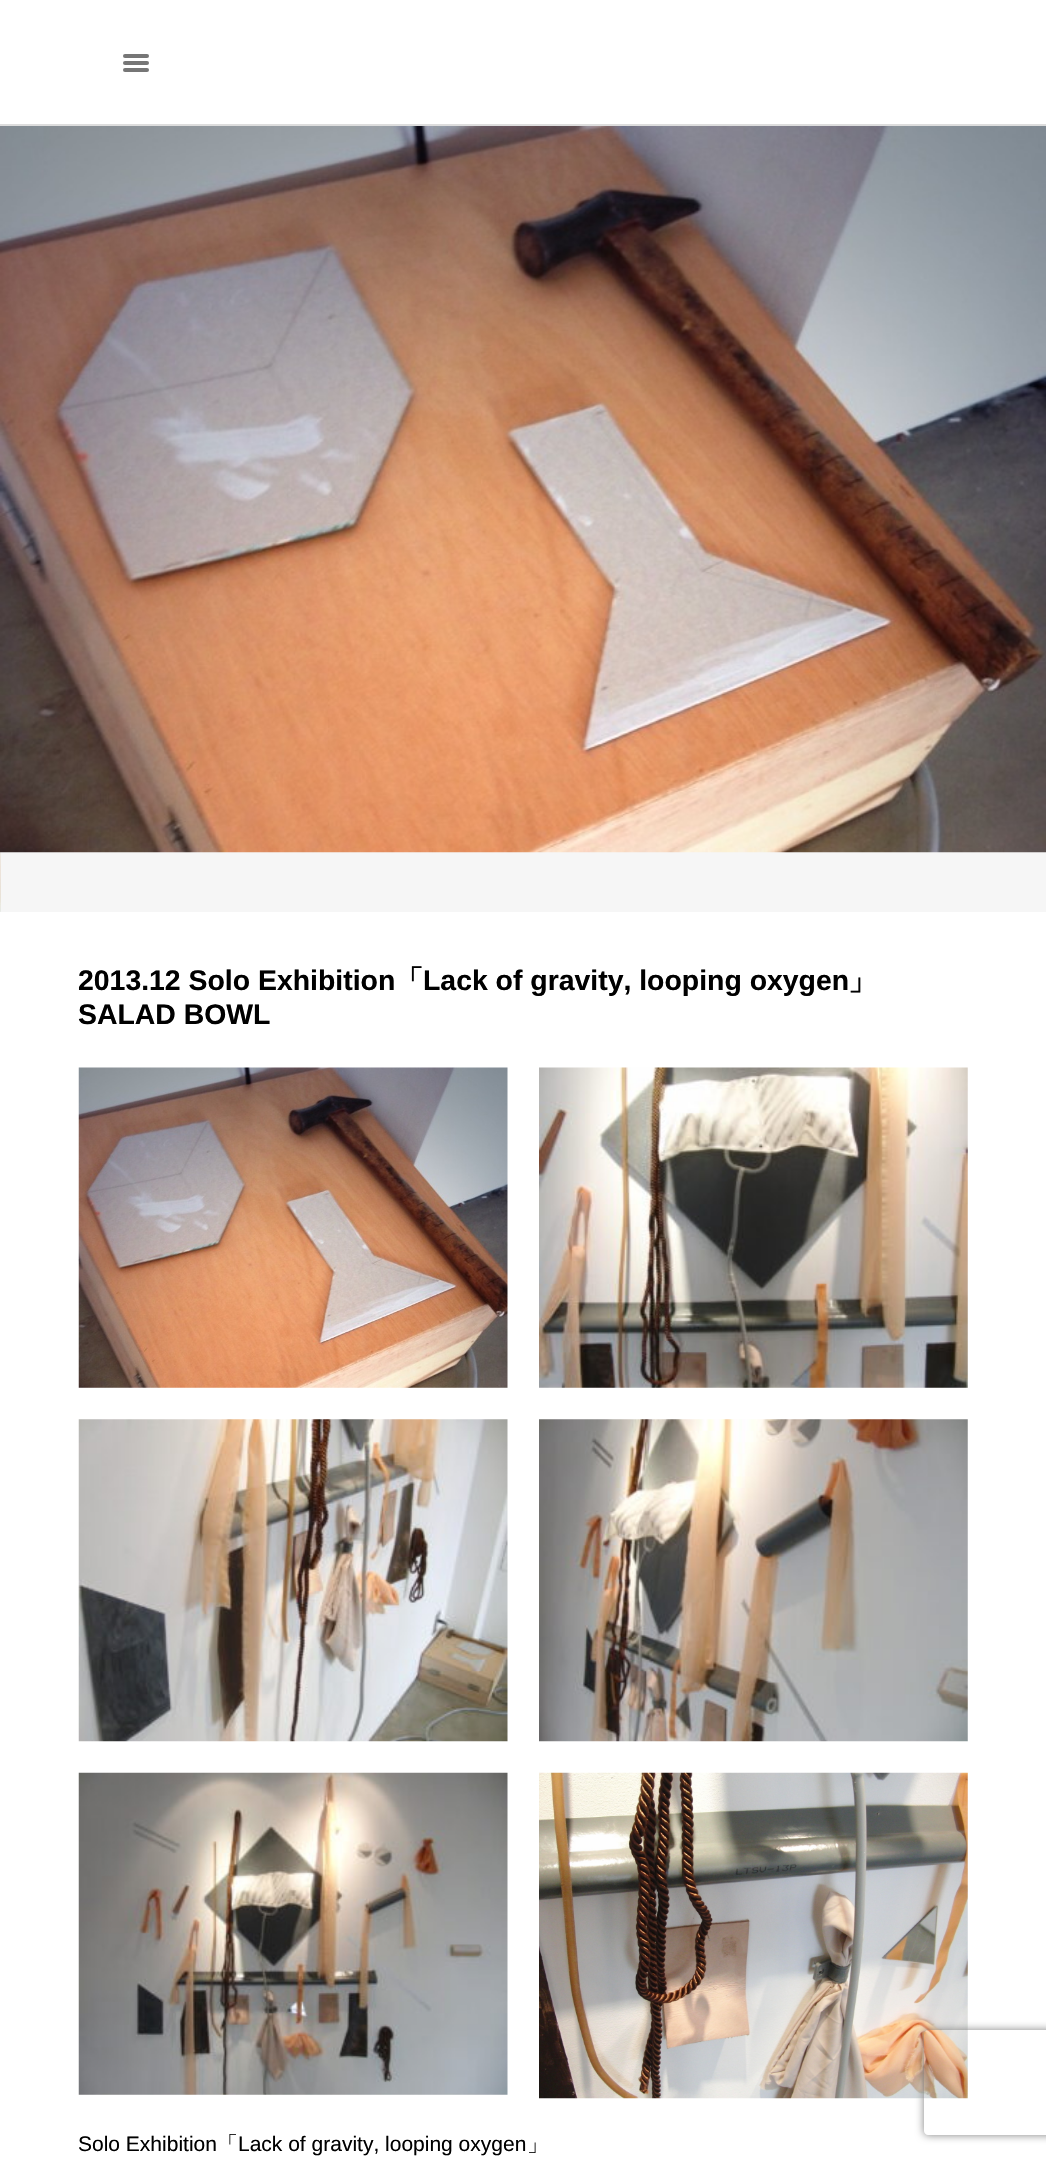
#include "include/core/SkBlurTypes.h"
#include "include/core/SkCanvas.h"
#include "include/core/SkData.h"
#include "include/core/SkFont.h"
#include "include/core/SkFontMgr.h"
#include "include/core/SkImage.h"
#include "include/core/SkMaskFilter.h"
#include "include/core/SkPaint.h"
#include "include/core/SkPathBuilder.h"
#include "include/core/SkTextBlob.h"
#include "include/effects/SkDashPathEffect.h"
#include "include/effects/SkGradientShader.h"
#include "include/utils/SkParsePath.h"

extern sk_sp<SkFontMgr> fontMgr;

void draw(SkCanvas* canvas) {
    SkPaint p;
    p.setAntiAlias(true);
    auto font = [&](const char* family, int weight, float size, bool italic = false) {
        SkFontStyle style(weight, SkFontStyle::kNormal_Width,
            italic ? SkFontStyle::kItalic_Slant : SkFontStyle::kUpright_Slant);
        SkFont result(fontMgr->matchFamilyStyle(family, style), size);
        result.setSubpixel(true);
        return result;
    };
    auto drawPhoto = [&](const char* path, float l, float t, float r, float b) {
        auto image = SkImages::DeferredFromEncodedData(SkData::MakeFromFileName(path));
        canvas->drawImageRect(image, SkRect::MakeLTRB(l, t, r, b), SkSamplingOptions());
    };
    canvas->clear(0xFFFFFFFF);
    p.setColor(0xFFDDDDDD);
    canvas->drawRect(SkRect::MakeLTRB(0, 124, 1046, 126), p);
    p.setColor(0xFF767676);
    canvas->drawRoundRect(SkRect::MakeLTRB(123, 54, 149, 58), 2, 2, p);
    canvas->drawRoundRect(SkRect::MakeLTRB(123, 61, 149, 65), 2, 2, p);
    canvas->drawRoundRect(SkRect::MakeLTRB(123, 68, 149, 72), 2, 2, p);
    p.setColor(0xFFF6F6F6);
    canvas->drawRect(SkRect::MakeLTRB(0, 852, 1046, 912), p);
    drawPhoto("media/2.png", 0, 852, 1, 912);
    drawPhoto("media/1.png", 0, 126, 1046, 853);
    auto font1 = font("Liberation Sans", 700, 28.4f);
    p.setColor(0xFF000000);
    canvas->drawString("2013.12 Solo Exhibition", 78, 990, font1, p);
    auto font2 = font("WenQuanYi Zen Hei", 700, 28.4f);
    canvas->drawString("「", 395, 990, font2, p);
    canvas->drawString("Lack of gravity, looping oxygen", 423, 990, font1, p);
    canvas->drawString("」", 848, 990, font2, p);
    canvas->drawString("SALAD BOWL", 78, 1024, font1, p);
    drawPhoto("media/3.png", 78, 1067, 508, 1388);
    drawPhoto("media/4.png", 539, 1067, 968, 1388);
    drawPhoto("media/5.png", 78, 1419, 508, 1742);
    drawPhoto("media/6.png", 539, 1419, 968, 1742);
    drawPhoto("media/7.png", 78, 1772, 508, 2095);
    drawPhoto("media/8.png", 539, 1772, 968, 2099);
    auto font3 = font("Liberation Sans", 400, 21);
    canvas->drawString("Solo Exhibition", 78, 2151, font3, p);
    auto font4 = font("WenQuanYi Zen Hei", 500, 21);
    canvas->drawString("「", 217, 2151, font4, p);
    canvas->drawString("Lack of gravity, looping oxygen", 238, 2151, font3, p);
    canvas->drawString("」", 527, 2151, font4, p);
    canvas->save();
    canvas->clipPath(SkPathBuilder(SkPathFillType::kEvenOdd).moveTo(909, 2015).lineTo(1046, 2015).lineTo(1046, 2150).lineTo(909, 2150).close().moveTo(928, 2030).lineTo(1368, 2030).cubicTo(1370, 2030, 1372, 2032, 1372, 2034).lineTo(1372, 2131).cubicTo(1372, 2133, 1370, 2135, 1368, 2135).lineTo(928, 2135).cubicTo(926, 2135, 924, 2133, 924, 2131).lineTo(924, 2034).cubicTo(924, 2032, 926, 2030, 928, 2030).close().detach(), true);
    p.setColor(0xFF808080);
    p.setMaskFilter(SkMaskFilter::MakeBlur(kNormal_SkBlurStyle, 4.5f));
    canvas->drawRoundRect(SkRect::MakeLTRB(924, 2030, 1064, 2135), 4, 4, p);
    p.setMaskFilter(nullptr);
    canvas->restore();
}
